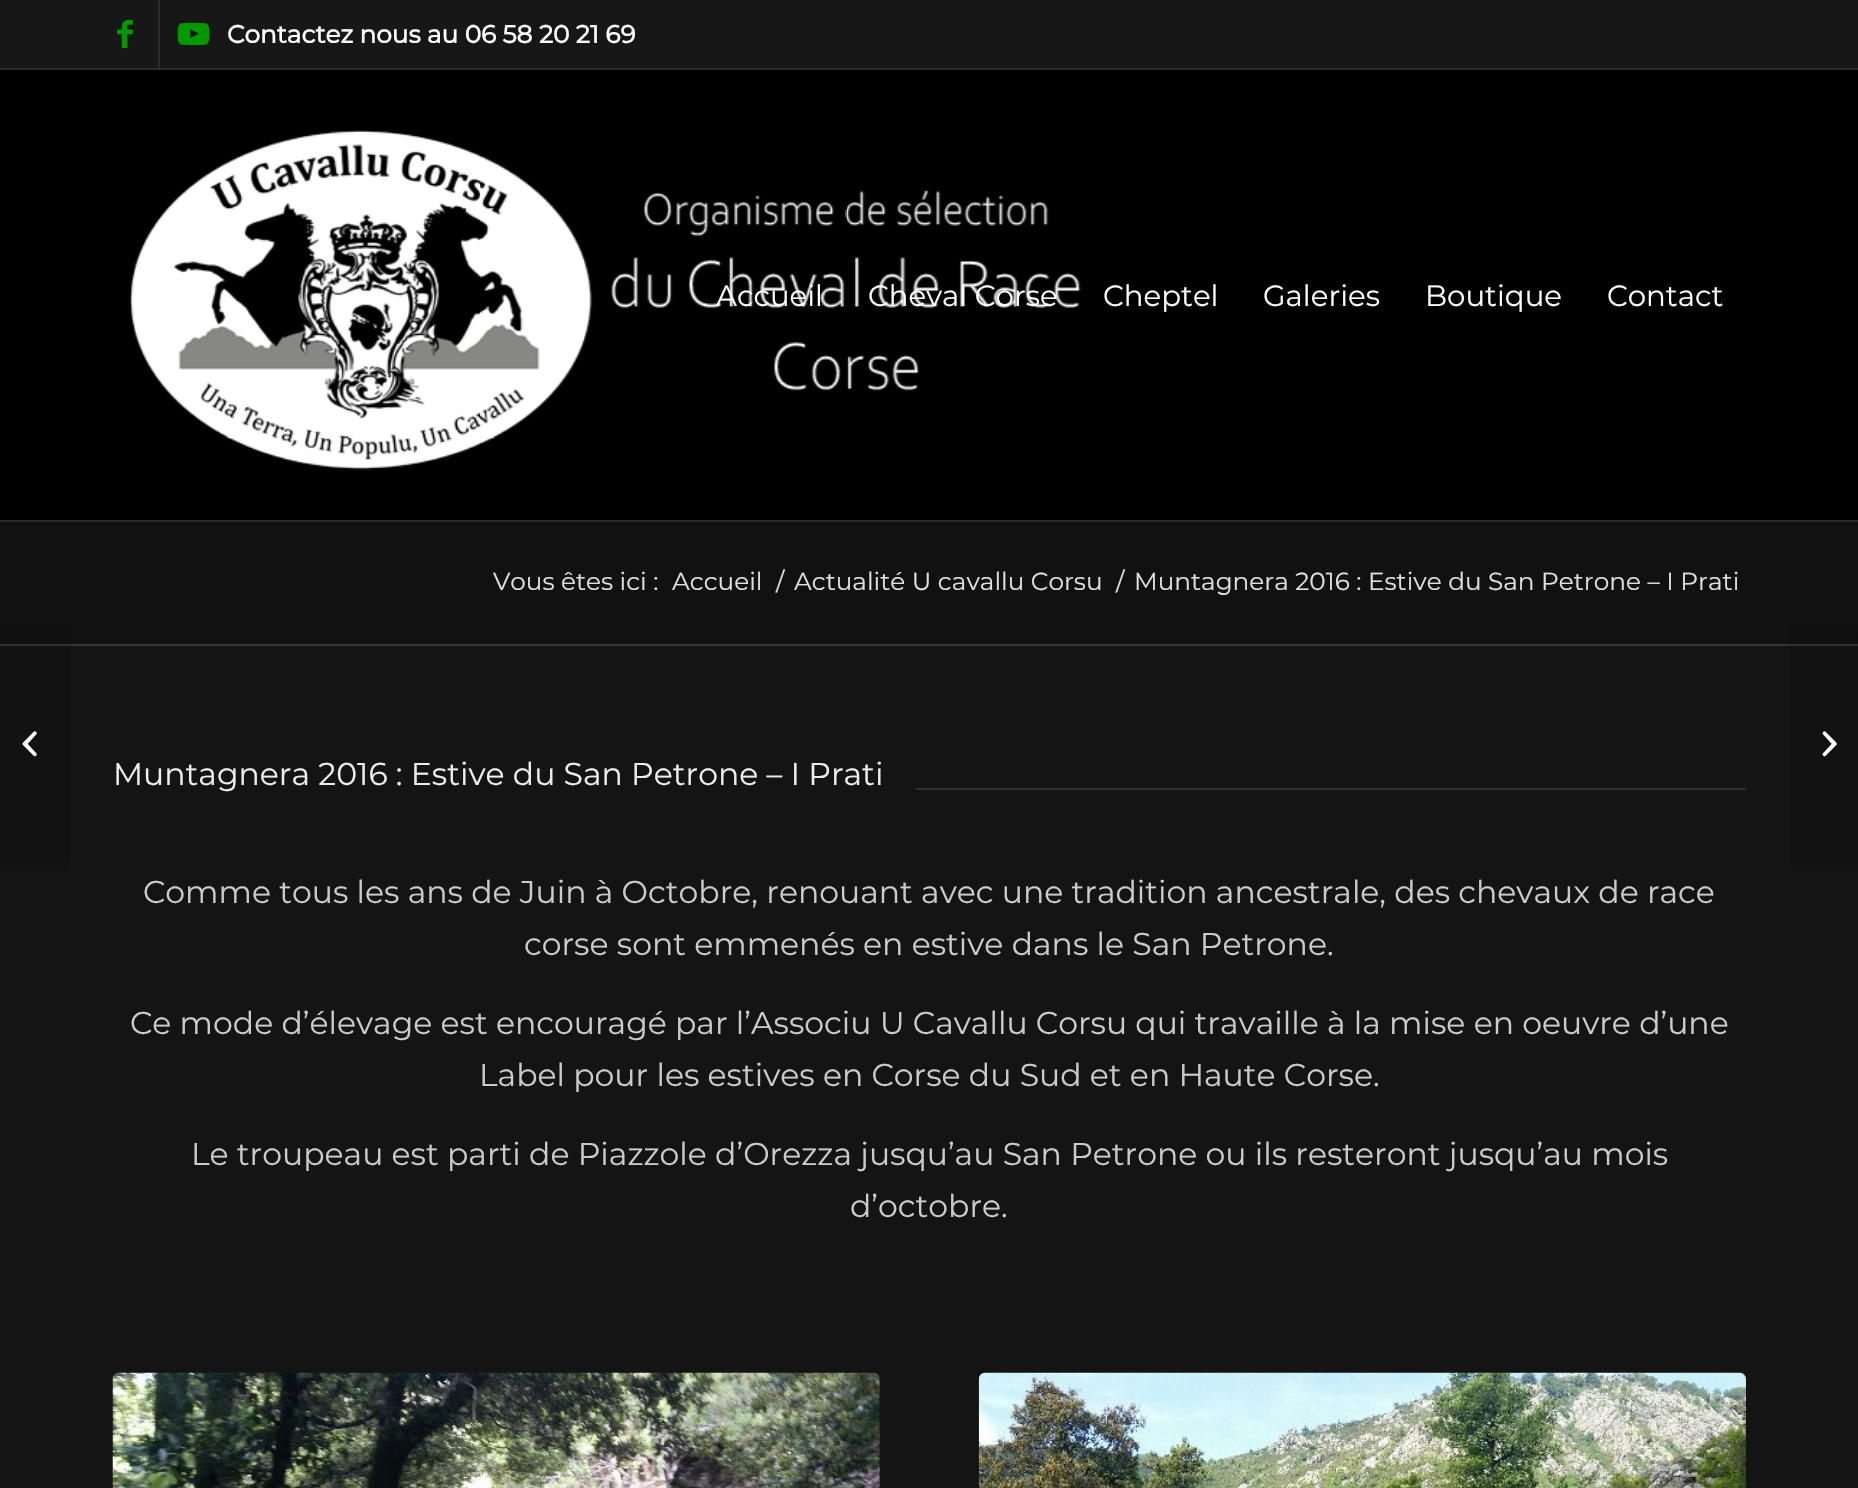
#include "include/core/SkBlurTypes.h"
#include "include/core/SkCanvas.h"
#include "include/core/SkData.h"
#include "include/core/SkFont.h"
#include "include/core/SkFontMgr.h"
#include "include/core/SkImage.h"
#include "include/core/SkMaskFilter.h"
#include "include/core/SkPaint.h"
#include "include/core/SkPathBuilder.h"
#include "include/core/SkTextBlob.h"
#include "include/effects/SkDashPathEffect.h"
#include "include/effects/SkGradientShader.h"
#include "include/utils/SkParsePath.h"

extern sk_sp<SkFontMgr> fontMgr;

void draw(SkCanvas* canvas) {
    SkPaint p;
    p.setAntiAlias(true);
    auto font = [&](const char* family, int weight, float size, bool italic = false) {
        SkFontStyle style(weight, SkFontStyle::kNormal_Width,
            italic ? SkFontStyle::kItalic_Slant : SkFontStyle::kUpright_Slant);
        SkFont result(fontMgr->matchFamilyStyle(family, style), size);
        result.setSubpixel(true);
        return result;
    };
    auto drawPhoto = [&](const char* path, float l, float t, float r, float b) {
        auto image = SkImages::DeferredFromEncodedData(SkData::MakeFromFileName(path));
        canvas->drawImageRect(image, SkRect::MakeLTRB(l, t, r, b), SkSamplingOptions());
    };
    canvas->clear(0xFF111111);
    {
        const struct { float l, t, r, b; SkColor color; } items[] = {
            {0, 0, 1858, 68, 0xFF171717},
            {0, 68, 1858, 70, 0xFF2B2B2B},
            {158, 0, 160, 68, 0xFF2B2B2B},
        };
        for (auto [l, t, r, b, color] : items) {
            p.setColor(color);
            canvas->drawRect(SkRect::MakeLTRB(l, t, r, b), p);
        }
    }
    drawPhoto("media/1.png", 117, 19, 133, 49);
    drawPhoto("media/2.png", 177, 22, 210, 46);
    auto font1 = font("Montserrat", 700, 24.75f);
    p.setColor(0xFFFFFFFF);
    canvas->drawString("Contactez nous au 06 58 20 21 69", 227, 43, font1, p);
    p.setColor(0xFF000000);
    canvas->drawRect(SkRect::MakeLTRB(0, 70, 1858, 520), p);
    p.setColor(0xFF2B2B2B);
    canvas->drawRect(SkRect::MakeLTRB(0, 520, 1858, 522), p);
    drawPhoto("media/3.png", 129, 130, 1081, 470);
    auto font2 = font("Montserrat", 100, 29.25f);
    p.setColor(0xFFFFFFFF);
    {
        const struct { const char* s; float x, y; } items[] = {
            {"Accueil", 716, 306},
            {"Cheval Corse", 868, 306},
            {"Cheptel", 1103, 306},
            {"Galeries", 1263, 306},
            {"Boutique", 1425, 306},
            {"Contact", 1607, 306},
        };
        for (auto [s, x, y] : items) {
            canvas->drawString(s, x, y, font2, p);
        }
    }
    p.setColor(0xFF141414);
    canvas->drawRect(SkRect::MakeLTRB(0, 646, 1858, 1488), p);
    p.setColor(0xFF363636);
    canvas->drawRect(SkRect::MakeLTRB(0, 644, 1858, 646), p);
    p.setColor(0x1A000000);
    canvas->drawPath(SkPathBuilder().moveTo(0, 621).lineTo(61, 621).cubicTo(66, 621, 70, 625, 70, 630).lineTo(70, 860).cubicTo(70, 865, 66, 869, 61, 869).lineTo(0, 869).close().detach(), p);
    drawPhoto("media/4.png", 22, 731, 37, 757);
    auto font3 = font("Montserrat", 100, 24.75f);
    p.setColor(0xFFE0E0E0);
    {
        const struct { const char* s; float x, y; } items[] = {
            {"Vous êtes ici :", 493, 590},
            {"Accueil", 672, 590},
            {"/", 776, 590},
            {"Actualité U cavallu Corsu", 794, 590},
            {"/", 1116, 590},
            {"Muntagnera 2016 : Estive du San Petrone – I Prati", 1134, 590},
        };
        for (auto [s, x, y] : items) {
            canvas->drawString(s, x, y, font3, p);
        }
    }
    auto font4 = font("Montserrat", 100, 31.5f);
    p.setColor(0xFFEDEDED);
    canvas->drawString("Muntagnera 2016 : Estive du San Petrone – I Prati", 113, 785, font4, p);
    p.setColor(0xFF302F30);
    canvas->drawRect(SkRect::MakeLTRB(916, 788, 1746, 790), p);
    p.setColor(0xFFCCCACC);
    {
        const struct { const char* s; float x, y; } items[] = {
            {"Comme tous les ans de Juin à Octobre, renouant avec une tradition ancestrale, des chevaux de race", 143, 903},
            {"corse sont emmenés en estive dans le San Petrone.", 524, 955},
            {"Ce mode d’élevage est encouragé par l’Associu U Cavallu Corsu qui travaille à la mise en oeuvre d’une", 130, 1034},
            {"Label pour les estives en Corse du Sud et en Haute Corse.", 479, 1086},
            {"Le troupeau est parti de Piazzole d’Orezza jusqu’au San Petrone ou ils resteront jusqu’au mois", 191, 1165},
            {"d’octobre.", 850, 1217},
        };
        for (auto [s, x, y] : items) {
            canvas->drawString(s, x, y, font4, p);
        }
    }
    drawPhoto("media/5.png", 112, 1372, 880, 1488);
    drawPhoto("media/6.png", 978, 1372, 1746, 1488);
    p.setColor(0x1A000000);
    canvas->drawPath(SkPathBuilder().moveTo(1798, 621).lineTo(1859, 621).lineTo(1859, 869).lineTo(1798, 869).cubicTo(1793, 869, 1789, 865, 1789, 860).lineTo(1789, 630).cubicTo(1789, 625, 1793, 621, 1798, 621).close().detach(), p);
    drawPhoto("media/7.png", 1822, 731, 1837, 757);
}
